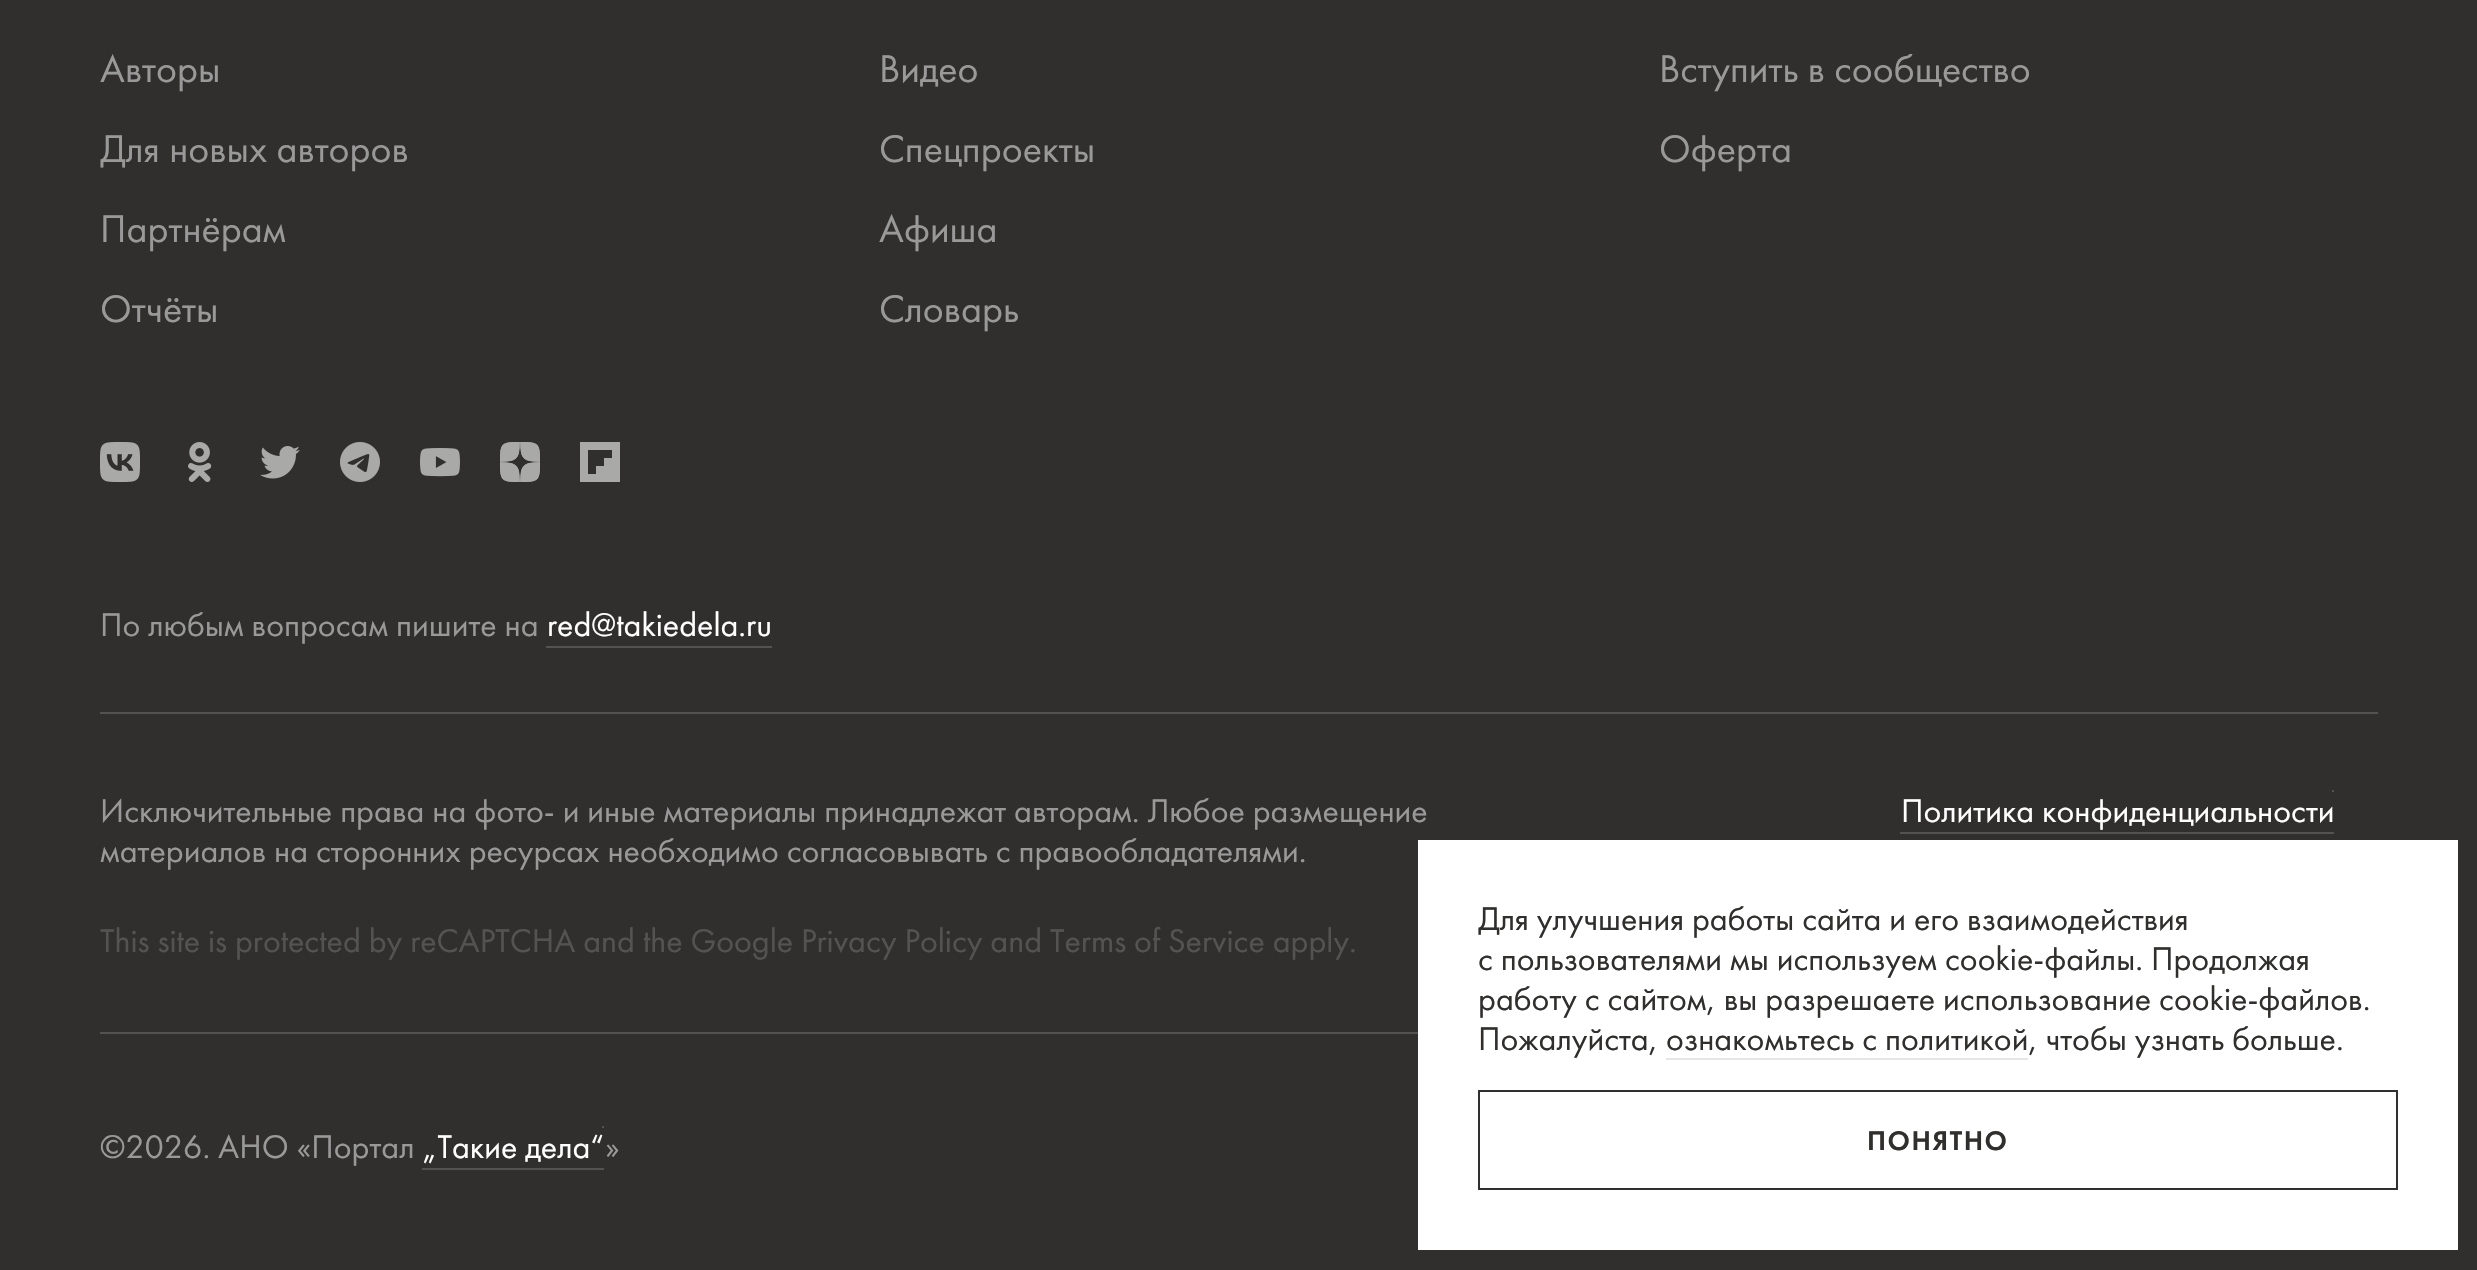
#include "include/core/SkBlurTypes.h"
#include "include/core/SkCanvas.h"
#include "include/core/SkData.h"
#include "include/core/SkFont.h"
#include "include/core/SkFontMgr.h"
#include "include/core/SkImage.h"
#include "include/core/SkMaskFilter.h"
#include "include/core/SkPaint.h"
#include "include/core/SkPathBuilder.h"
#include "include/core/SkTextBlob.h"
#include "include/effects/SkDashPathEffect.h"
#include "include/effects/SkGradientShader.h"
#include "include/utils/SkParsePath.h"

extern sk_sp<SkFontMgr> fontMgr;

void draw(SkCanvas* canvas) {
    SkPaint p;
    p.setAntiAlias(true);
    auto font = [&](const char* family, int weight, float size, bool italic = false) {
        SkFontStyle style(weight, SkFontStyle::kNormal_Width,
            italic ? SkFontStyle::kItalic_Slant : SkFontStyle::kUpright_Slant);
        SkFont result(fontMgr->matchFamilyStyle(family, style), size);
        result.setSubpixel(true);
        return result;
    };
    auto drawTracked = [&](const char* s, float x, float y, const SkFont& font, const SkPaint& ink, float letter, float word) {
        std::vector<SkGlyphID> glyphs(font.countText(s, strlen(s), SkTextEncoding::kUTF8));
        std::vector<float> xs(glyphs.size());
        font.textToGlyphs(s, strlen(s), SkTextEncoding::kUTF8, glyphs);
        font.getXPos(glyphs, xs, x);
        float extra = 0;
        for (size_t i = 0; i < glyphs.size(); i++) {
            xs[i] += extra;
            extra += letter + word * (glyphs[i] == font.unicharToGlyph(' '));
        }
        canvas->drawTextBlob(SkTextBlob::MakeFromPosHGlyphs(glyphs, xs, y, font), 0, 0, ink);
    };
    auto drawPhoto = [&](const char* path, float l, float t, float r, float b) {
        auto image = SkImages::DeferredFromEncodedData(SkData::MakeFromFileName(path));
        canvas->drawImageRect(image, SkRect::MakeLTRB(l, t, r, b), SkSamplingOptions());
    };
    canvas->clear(0xFF302F2D);
    auto font1 = font("Futura PT", 400, 40);
    p.setColor(0xFF999999);
    {
        const struct { const char* s; float x, y; } items[] = {
            {"Авторы", 100, 82},
            {"Для новых авторов", 100, 162},
            {"Партнёрам", 100, 242},
            {"Отчёты", 100, 322},
            {"Видео", 879, 82},
            {"Спецпроекты", 879, 162},
            {"Афиша", 879, 242},
            {"Словарь", 879, 322},
            {"Вступить в сообщество", 1659, 82},
            {"Оферта", 1659, 162},
        };
        for (auto [s, x, y] : items) {
            canvas->drawString(s, x, y, font1, p);
        }
    }
    drawPhoto("media/1.png", 100, 442, 140, 482);
    drawPhoto("media/2.png", 188, 442, 212, 482);
    drawPhoto("media/3.png", 260, 446, 300, 479);
    drawPhoto("media/4.png", 340, 442, 380, 482);
    drawPhoto("media/5.png", 420, 448, 460, 477);
    drawPhoto("media/6.png", 500, 442, 540, 482);
    p.setColor(0xFFA9A9A8);
    canvas->drawPath(SkPathBuilder().moveTo(580, 442).lineTo(580, 482).lineTo(620, 482).lineTo(620, 442).close().moveTo(612, 458).lineTo(604, 458).lineTo(604, 466).lineTo(596, 466).lineTo(596, 474).lineTo(588, 474).lineTo(588, 450).lineTo(612, 450).close().detach(), p);
    auto font2 = font("Futura PT", 400, 34);
    p.setColor(0xFF999999);
    canvas->drawString("По любым вопросам пишите на", 100, 636, font2, p);
    p.setColor(0xFFFFFFFF);
    canvas->drawString("red@takiedela.ru", 547, 636, font2, p);
    {
        const struct { float l, t, r, b; SkColor color; } items[] = {
            {546, 646, 772, 648, 0xFF545351},
            {100, 712, 2378, 714, 0xFF545351},
            {100, 1032, 1418, 1034, 0xFF545351},
        };
        for (auto [l, t, r, b, color] : items) {
            p.setColor(color);
            canvas->drawRect(SkRect::MakeLTRB(l, t, r, b), p);
        }
    }
    p.setColor(0xFF999999);
    canvas->drawString("Исключительные права на фото- и иные материалы принадлежат авторам. Любое размещение", 100, 822, font2, p);
    canvas->drawString("материалов на сторонних ресурсах необходимо согласовывать с правообладателями.", 100, 862, font2, p);
    p.setColor(0xFF545351);
    canvas->drawString("This site is protected by reCAPTCHA and the Google Privacy Policy and Terms of Service apply.", 100, 952, font2, p);
    p.setColor(0xFFFFFFFF);
    canvas->drawString("Политика конфиденциальности", 1901, 822, font2, p);
    p.setColor(0xFF545351);
    canvas->drawRect(SkRect::MakeLTRB(1900, 832, 2334, 834), p);
    canvas->drawRect(SkRect::MakeLTRB(2332, 790, 2334, 792), p);
    p.setColor(0xFF999999);
    canvas->drawString("©2026. АНО «Портал", 100, 1158, font2, p);
    p.setColor(0xFFFFFFFF);
    canvas->drawString("„Такие дела“", 422, 1158, font2, p);
    p.setColor(0xFF545351);
    canvas->drawRect(SkRect::MakeLTRB(422, 1168, 604, 1170), p);
    canvas->drawRect(SkRect::MakeLTRB(602, 1126, 604, 1128), p);
    p.setColor(0xFF999999);
    canvas->drawString("»", 605, 1158, font2, p);
    p.setColor(0xFFFFFFFF);
    canvas->drawRect(SkRect::MakeLTRB(1418, 840, 2458, 1250), p);
    p.setColor(0xFF302F2D);
    {
        const struct { const char* s; float x, y; } items[] = {
            {"Для улучшения работы сайта и его взаимодействия", 1478, 930},
            {"с пользователями мы используем cookie-файлы. Продолжая", 1478, 970},
            {"работу с сайтом, вы разрешаете использование cookie-файлов.", 1478, 1010},
            {"Пожалуйста, ознакомьтесь с политикой, чтобы узнать больше.", 1478, 1050},
        };
        for (auto [s, x, y] : items) {
            canvas->drawString(s, x, y, font2, p);
        }
    }
    p.setColor(0xFFE6E6E6);
    canvas->drawRect(SkRect::MakeLTRB(1666, 1058, 2028, 1060), p);
    p.setStyle(SkPaint::kStroke_Style);
    p.setStrokeWidth(2);
    p.setColor(0xFF302F2D);
    canvas->drawRect(SkRect::MakeLTRB(1479, 1091, 2397, 1189), p);
    auto font3 = font("Futura PT", 500, 28);
    p.setStyle(SkPaint::kFill_Style);
    drawTracked("ПОНЯТНО", 1867, 1150, font3, p, 1.5f, 0);
}
